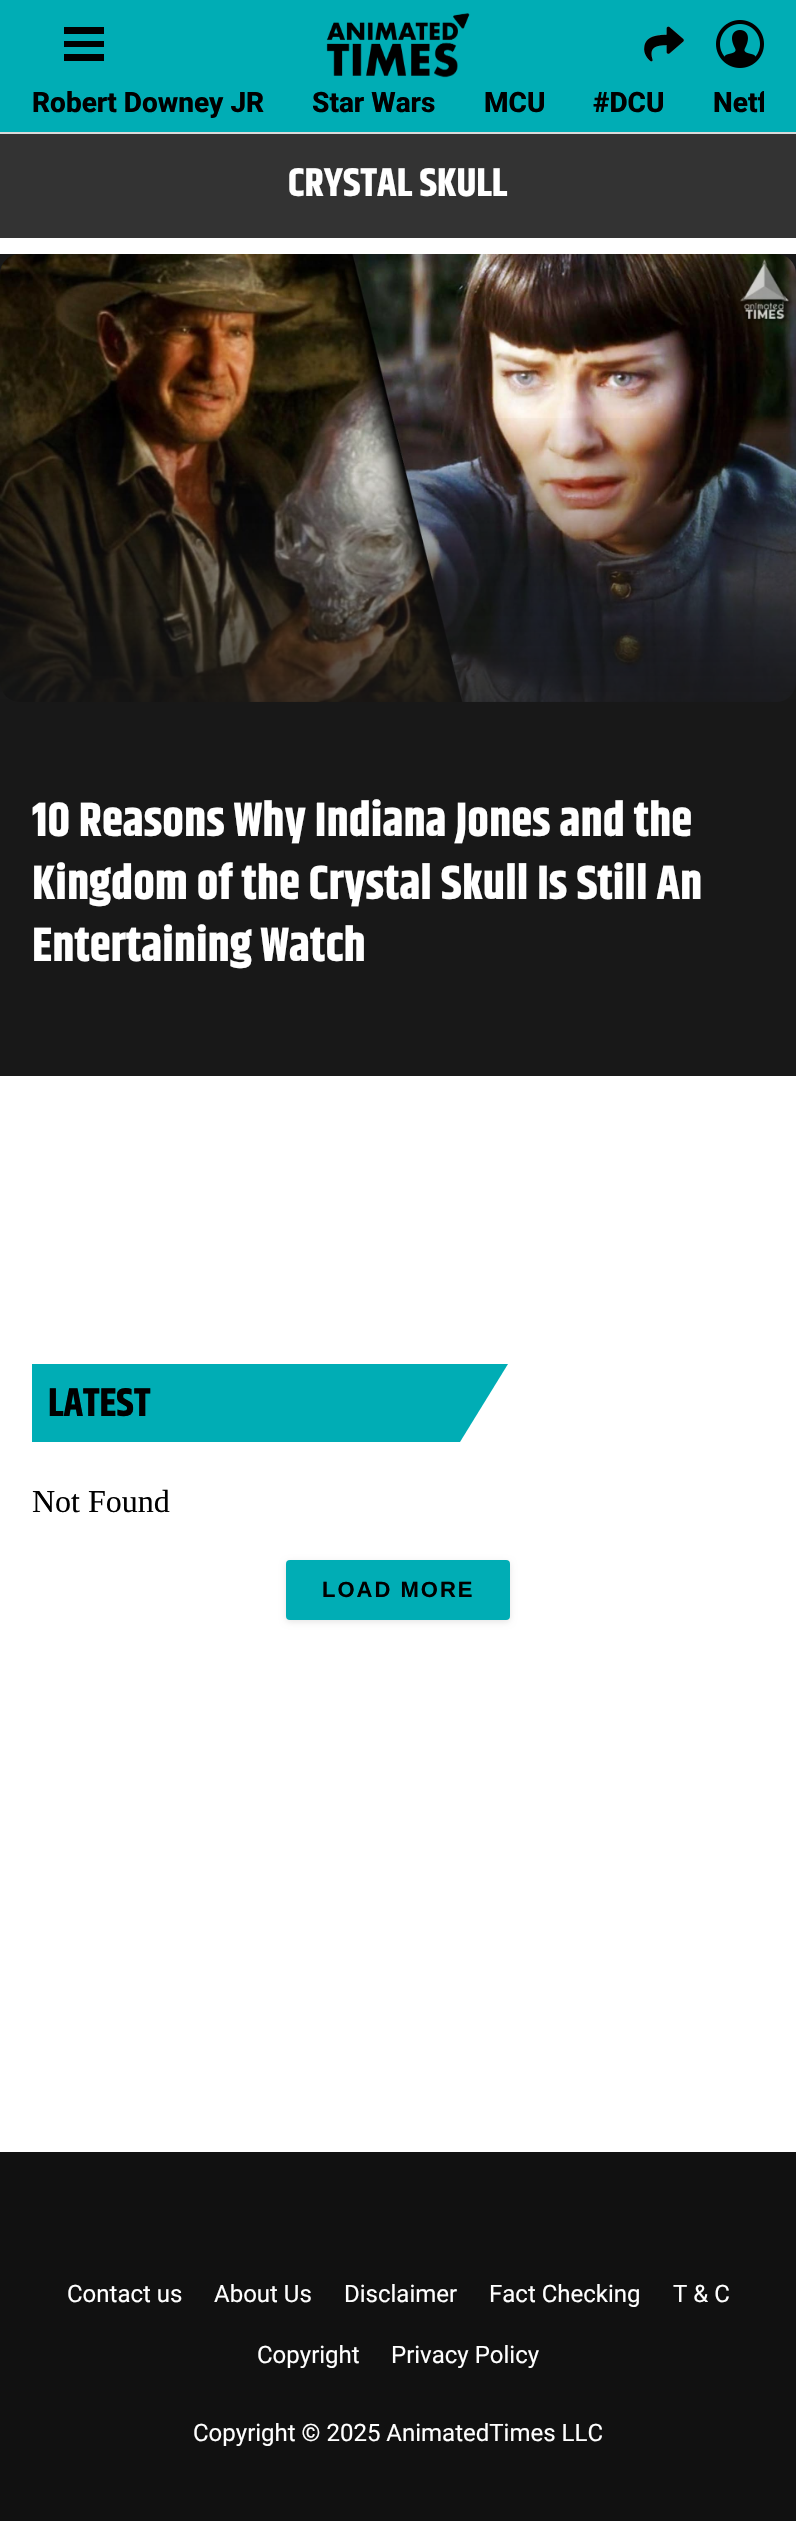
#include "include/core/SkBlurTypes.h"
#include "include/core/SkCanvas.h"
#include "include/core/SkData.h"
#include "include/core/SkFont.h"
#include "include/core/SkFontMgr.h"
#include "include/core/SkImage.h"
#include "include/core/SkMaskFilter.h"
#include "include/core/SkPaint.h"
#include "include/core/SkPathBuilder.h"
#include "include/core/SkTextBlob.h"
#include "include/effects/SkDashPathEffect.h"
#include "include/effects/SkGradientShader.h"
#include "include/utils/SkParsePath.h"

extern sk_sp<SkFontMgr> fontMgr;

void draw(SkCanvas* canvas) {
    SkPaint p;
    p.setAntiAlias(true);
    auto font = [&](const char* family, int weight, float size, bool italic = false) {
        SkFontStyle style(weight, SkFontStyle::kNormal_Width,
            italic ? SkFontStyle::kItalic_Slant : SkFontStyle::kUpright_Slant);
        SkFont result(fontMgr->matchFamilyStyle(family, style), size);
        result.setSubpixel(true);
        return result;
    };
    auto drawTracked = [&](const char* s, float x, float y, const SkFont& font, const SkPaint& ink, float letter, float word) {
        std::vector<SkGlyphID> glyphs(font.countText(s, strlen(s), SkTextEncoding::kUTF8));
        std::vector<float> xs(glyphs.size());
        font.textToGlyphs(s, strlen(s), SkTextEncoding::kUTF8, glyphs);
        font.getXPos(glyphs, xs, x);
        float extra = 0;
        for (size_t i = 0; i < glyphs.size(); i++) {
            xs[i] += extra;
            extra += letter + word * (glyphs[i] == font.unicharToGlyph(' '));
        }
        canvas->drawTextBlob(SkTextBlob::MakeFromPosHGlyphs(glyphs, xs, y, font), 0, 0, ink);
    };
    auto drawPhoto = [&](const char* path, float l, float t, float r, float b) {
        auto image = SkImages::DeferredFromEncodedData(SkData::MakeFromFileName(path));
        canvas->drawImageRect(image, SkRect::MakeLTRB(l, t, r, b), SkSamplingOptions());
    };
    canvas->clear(0xFFFFFFFF);
    p.setColor(0xFFD9D9D9);
    canvas->drawRect(SkRect::MakeLTRB(0, 132, 796, 134), p);
    p.setColor(0xFF00ADB5);
    canvas->drawRect(SkRect::MakeLTRB(0, 0, 796, 132), p);
    p.setColor(0xFF000000);
    canvas->drawPath(SkPathBuilder().moveTo(104, 34).lineTo(64, 34).lineTo(64, 27).lineTo(104, 27).close().moveTo(104, 41).lineTo(64, 41).lineTo(64, 47).lineTo(104, 47).close().moveTo(104, 54).lineTo(64, 54).lineTo(64, 61).lineTo(104, 61).close().detach(), p);
    drawPhoto("media/1.png", 326, 13, 470, 78);
    drawPhoto("media/2.png", 644, 26, 684, 62);
    drawPhoto("media/3.png", 716, 20, 764, 68);
    auto font1 = font("Roboto", 800, 28);
    {
        const struct { const char* s; float x, y; } items[] = {
            {"Robert Downey JR", 32, 112},
            {"Star Wars", 312, 112},
            {"MCU", 484, 112},
            {"#DCU", 593, 112},
        };
        for (auto [s, x, y] : items) {
            canvas->drawString(s, x, y, font1, p);
        }
    }
    canvas->save();
    canvas->clipRect(SkRect::MakeLTRB(32, 72, 764, 132));
    canvas->drawString("Netf", 713, 112, font1, p);
    canvas->restore();
    p.setColor(0xFF333333);
    canvas->drawRect(SkRect::MakeLTRB(0, 134, 796, 238), p);
    auto font2 = font("Khand", 700, 40);
    p.setColor(0xFFFFFFFF);
    canvas->drawString("CRYSTAL SKULL", 288, 196, font2, p);
    p.setColor(0xFF181818);
    canvas->drawRect(SkRect::MakeLTRB(0, 254, 796, 1076), p);
    drawPhoto("media/4.png", 0, 254, 796, 702);
    {
        const SkColor colors[] = {0x00181818, 0xFF181818};
        const float stops[] = {0, 1};
        const SkPoint ends[] = {{398, 410}, {398, 776}};
        p.setShader(SkGradientShader::MakeLinear(ends, colors, stops, 2, SkTileMode::kClamp));
        p.setAlpha(255);
    }
    canvas->drawRect(SkRect::MakeLTRB(0, 418, 796, 702), p);
    auto font3 = font("Khand", 700, 48);
    p.setShader(nullptr);
    p.setColor(0xFFFFFFFF);
    {
        const struct { const char* s; float x, y; } items[] = {
            {"10 Reasons Why Indiana Jones and the", 32, 836},
            {"Kingdom of the Crystal Skull Is Still An", 32, 899},
            {"Entertaining Watch", 32, 961},
        };
        for (auto [s, x, y] : items) {
            canvas->drawString(s, x, y, font3, p);
        }
    }
    p.setColor(0xFF00ADB5);
    canvas->drawPath(SkPathBuilder().moveTo(32, 1364).lineTo(32, 1442).lineTo(460, 1442).lineTo(508, 1364).close().detach(), p);
    p.setColor(0xFF000000);
    canvas->drawString("LATEST", 48, 1416, font2, p);
    auto font4 = font("Liberation Serif", 400, 32);
    canvas->drawString("Not Found", 32, 1512, font4, p);
    p.setColor(0x1A000000);
    p.setMaskFilter(SkMaskFilter::MakeBlur(kNormal_SkBlurStyle, 3));
    canvas->drawRoundRect(SkRect::MakeLTRB(286, 1562, 510, 1622), 4, 4, p);
    p.setMaskFilter(nullptr);
    p.setColor(0xFF00ADB5);
    canvas->drawRoundRect(SkRect::MakeLTRB(286, 1560, 510, 1620), 4, 4, p);
    auto font5 = font("Liberation Sans", 700, 22);
    p.setColor(0xFF000000);
    drawTracked("LOAD MORE", 322, 1597, font5, p, 2, 0);
    p.setColor(0xFF111111);
    canvas->drawRect(SkRect::MakeLTRB(0, 2152, 796, 2521), p);
    auto font6 = font("Roboto", 400, 24);
    p.setColor(0xFFFFFFFF);
    {
        const struct { const char* s; float x, y; } items[] = {
            {"Contact us", 67, 2302},
            {"About Us", 214, 2302},
            {"Disclaimer", 344, 2302},
            {"Fact Checking", 489, 2302},
            {"T & C", 673, 2302},
            {"Copyright", 257, 2363},
            {"Privacy Policy", 391, 2363},
            {"Copyright © 2025 AnimatedTimes LLC", 193, 2441},
        };
        for (auto [s, x, y] : items) {
            canvas->drawString(s, x, y, font6, p);
        }
    }
}
